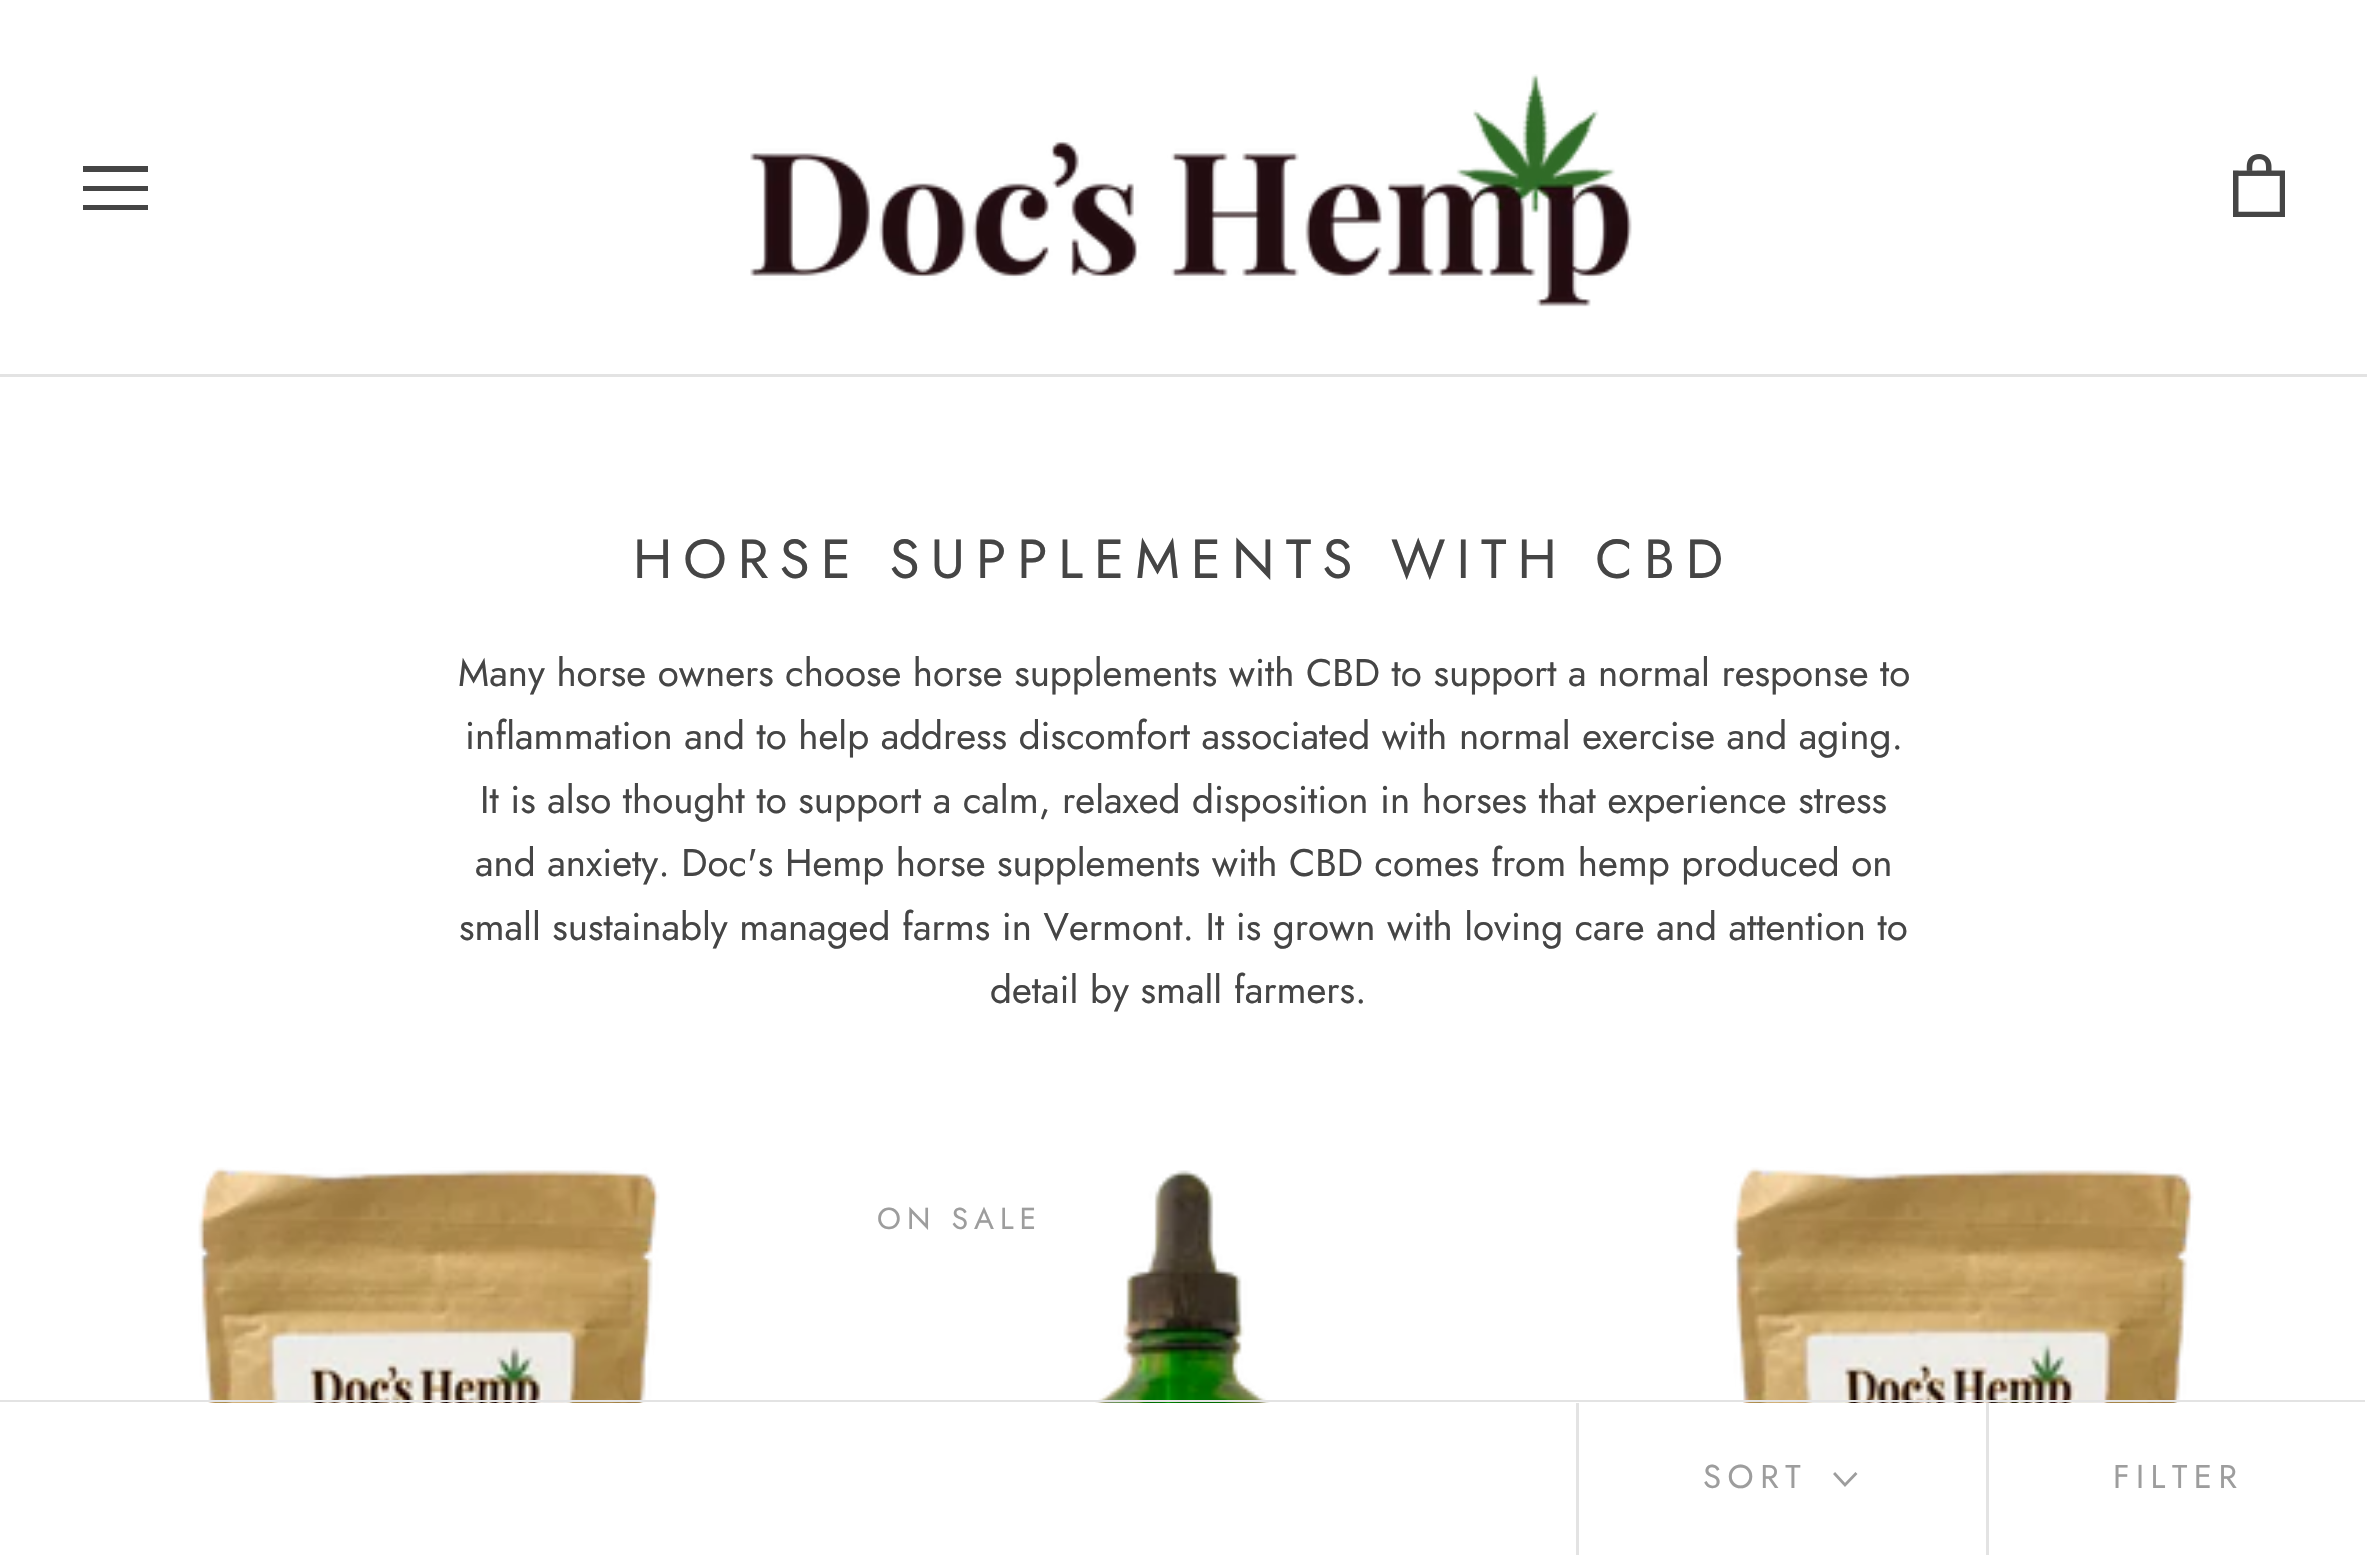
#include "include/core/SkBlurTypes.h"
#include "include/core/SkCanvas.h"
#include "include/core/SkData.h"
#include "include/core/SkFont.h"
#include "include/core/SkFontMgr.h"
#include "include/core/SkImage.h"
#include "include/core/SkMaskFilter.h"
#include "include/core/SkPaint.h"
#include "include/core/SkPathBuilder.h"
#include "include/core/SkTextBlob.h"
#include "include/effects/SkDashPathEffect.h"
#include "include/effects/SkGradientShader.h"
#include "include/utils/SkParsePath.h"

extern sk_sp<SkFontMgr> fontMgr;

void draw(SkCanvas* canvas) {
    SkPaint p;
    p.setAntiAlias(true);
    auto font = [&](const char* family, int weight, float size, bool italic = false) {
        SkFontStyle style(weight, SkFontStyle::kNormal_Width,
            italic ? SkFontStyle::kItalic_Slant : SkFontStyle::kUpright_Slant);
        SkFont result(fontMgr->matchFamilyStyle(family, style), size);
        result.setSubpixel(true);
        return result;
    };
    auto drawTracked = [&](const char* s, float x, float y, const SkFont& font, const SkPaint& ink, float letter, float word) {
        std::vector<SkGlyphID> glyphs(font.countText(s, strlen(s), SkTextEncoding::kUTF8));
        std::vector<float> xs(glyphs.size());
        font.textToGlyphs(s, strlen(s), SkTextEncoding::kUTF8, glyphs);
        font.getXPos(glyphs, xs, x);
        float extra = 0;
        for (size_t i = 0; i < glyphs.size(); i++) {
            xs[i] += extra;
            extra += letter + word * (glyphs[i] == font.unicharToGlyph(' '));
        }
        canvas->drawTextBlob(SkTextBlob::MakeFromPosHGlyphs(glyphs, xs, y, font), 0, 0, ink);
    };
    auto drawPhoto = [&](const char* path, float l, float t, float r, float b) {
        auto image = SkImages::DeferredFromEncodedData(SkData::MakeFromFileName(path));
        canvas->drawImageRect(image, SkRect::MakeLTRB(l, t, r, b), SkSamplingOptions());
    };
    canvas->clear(0xFFFFFFFF);
    p.setColor(0xFFE3E3E3);
    canvas->drawRect(SkRect::MakeLTRB(0, 374, 2367, 377), p);
    canvas->save();
    canvas->clipRect(SkRect::MakeLTRB(83, 165, 149, 212));
    p.setColor(0xFF454545);
    canvas->drawPath(SkPathBuilder().moveTo(82, 210).lineTo(82, 205).lineTo(148, 205).lineTo(148, 210).close().moveTo(82, 186).lineTo(148, 186).lineTo(148, 191).lineTo(82, 191).close().moveTo(82, 166).lineTo(148, 166).lineTo(148, 172).lineTo(82, 172).close().detach(), p);
    canvas->restore();
    drawPhoto("media/1.png", 750, 74, 1632, 307);
    drawPhoto("media/2.png", 2233, 154, 2285, 217);
    auto font1 = font("Jost", 400, 55);
    drawTracked("HORSE SUPPLEMENTS WITH CBD", 633, 578, font1, p, 11, 0);
    auto font2 = font("Jost", 400, 38.5f);
    {
        const struct { const char* s; float x, y; } items[] = {
            {"Many horse owners choose horse supplements with CBD to support a normal response to", 458, 686},
            {"inflammation and to help address discomfort associated with normal exercise and aging.", 465, 749},
            {"It is also thought to support a calm, relaxed disposition in horses that experience stress", 480, 813},
            {"and anxiety. Doc's Hemp horse supplements with CBD comes from hemp produced on", 475, 876},
            {"small sustainably managed farms in Vermont. It is grown with loving care and attention to", 459, 940},
            {"detail by small farmers.", 990, 1003},
        };
        for (auto [s, x, y] : items) {
            canvas->drawString(s, x, y, font2, p);
        }
    }
    drawPhoto("media/3.png", 198, 1167, 660, 1403);
    auto font3 = font("Jost", 400, 30.25f);
    p.setColor(0xFF9D9D9D);
    drawTracked("ON SALE", 877, 1229, font3, p, 6, 0);
    drawPhoto("media/4.png", 1095, 1170, 1270, 1403);
    drawPhoto("media/5.png", 1732, 1167, 2194, 1403);
    p.setColor(0xFFE3E3E3);
    canvas->drawPath(SkPathBuilder().moveTo(-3, 1400).lineTo(-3, 1554).lineTo(0, 1554).lineTo(0, 1402).lineTo(2365, 1402).lineTo(2365, 1400).close().detach(), p);
    canvas->drawRect(SkRect::MakeLTRB(1576, 1403, 1579, 1555), p);
    auto font4 = font("Jost", 400, 33);
    p.setColor(0xFF9D9D9D);
    drawTracked("SORT", 1703, 1488, font4, p, 6.5f, 0);
    p.setStyle(SkPaint::kStroke_Style);
    p.setStrokeWidth(2.8f);
    p.setStrokeCap(SkPaint::kSquare_Cap);
    canvas->drawPath(SkPathBuilder().moveTo(1855.5f, 1474).lineTo(1845, 1485).lineTo(1835, 1474).detach(), p);
    p.setStyle(SkPaint::kFill_Style);
    p.setColor(0xFFE3E3E3);
    canvas->drawRect(SkRect::MakeLTRB(1986, 1403, 1989, 1555), p);
    p.setColor(0xFF9D9D9D);
    drawTracked("FILTER", 2113, 1488, font4, p, 6.5f, 0);
}
